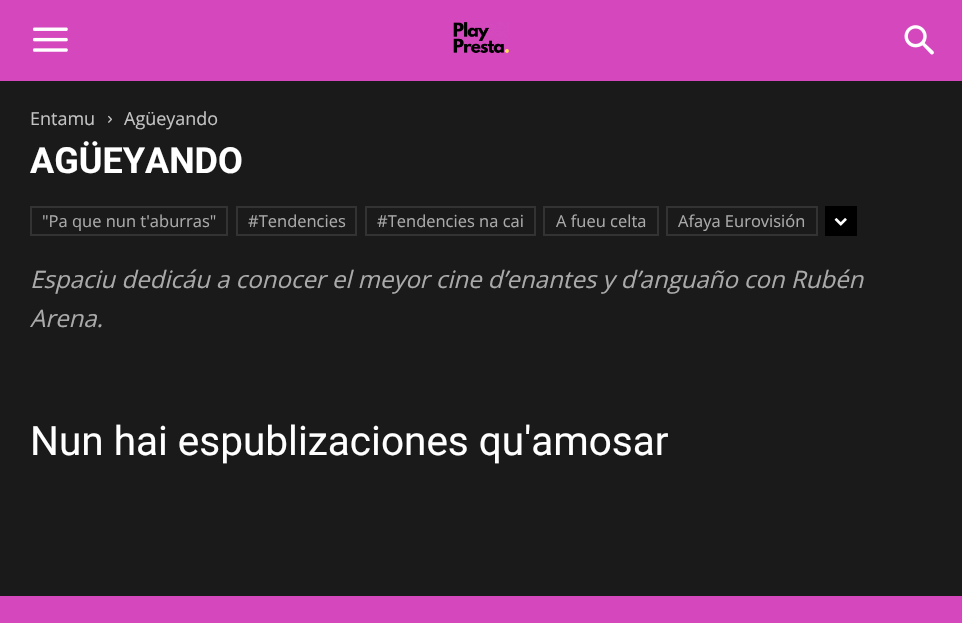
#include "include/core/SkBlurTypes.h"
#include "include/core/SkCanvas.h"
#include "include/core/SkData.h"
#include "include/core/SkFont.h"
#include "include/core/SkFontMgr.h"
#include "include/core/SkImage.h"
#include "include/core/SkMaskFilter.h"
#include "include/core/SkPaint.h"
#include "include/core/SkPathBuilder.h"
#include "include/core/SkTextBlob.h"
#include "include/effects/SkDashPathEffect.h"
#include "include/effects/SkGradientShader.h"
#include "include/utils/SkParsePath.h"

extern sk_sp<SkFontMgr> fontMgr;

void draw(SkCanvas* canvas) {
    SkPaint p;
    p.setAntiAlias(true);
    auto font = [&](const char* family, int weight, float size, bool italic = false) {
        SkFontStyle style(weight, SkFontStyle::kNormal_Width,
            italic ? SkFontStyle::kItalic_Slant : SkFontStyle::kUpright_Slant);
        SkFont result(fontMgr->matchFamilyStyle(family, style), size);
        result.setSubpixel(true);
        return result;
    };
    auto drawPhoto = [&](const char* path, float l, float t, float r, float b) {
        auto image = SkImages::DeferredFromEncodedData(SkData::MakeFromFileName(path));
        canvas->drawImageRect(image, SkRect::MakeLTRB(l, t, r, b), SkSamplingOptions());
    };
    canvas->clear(0xFF1A1A1A);
    p.setColor(0xFFD447BD);
    canvas->drawRect(SkRect::MakeLTRB(0, 0, 962, 81), p);
    drawPhoto("media/1.png", 33, 27, 68, 52);
    drawPhoto("media/2.png", 453, 22, 509, 53);
    drawPhoto("media/3.png", 904, 25, 934, 55);
    auto font1 = font("Open Sans", 400, 18);
    p.setColor(0xFFC3C3C3);
    canvas->drawString("Entamu", 30, 125, font1, p);
    drawPhoto("media/4.png", 108, 115, 112, 123);
    canvas->drawString("Agüeyando", 124, 125, font1, p);
    auto font2 = font("Roboto", 700, 36);
    p.setColor(0xFFFFFFFF);
    canvas->drawString("AGÜEYANDO", 30, 173, font2, p);
    p.setStyle(SkPaint::kStroke_Style);
    p.setStrokeWidth(2);
    p.setColor(0xFF333333);
    canvas->drawRect(SkRect::MakeLTRB(31, 207, 227, 235), p);
    auto font3 = font("Open Sans", 400, 16.5f);
    p.setStyle(SkPaint::kFill_Style);
    p.setColor(0xFFAAAAAA);
    canvas->drawString("\"Pa que nun t'aburras\"", 42, 227, font3, p);
    p.setStyle(SkPaint::kStroke_Style);
    p.setColor(0xFF333333);
    canvas->drawRect(SkRect::MakeLTRB(237, 207, 356, 235), p);
    p.setStyle(SkPaint::kFill_Style);
    p.setColor(0xFFAAAAAA);
    canvas->drawString("#Tendencies", 248, 227, font3, p);
    p.setStyle(SkPaint::kStroke_Style);
    p.setColor(0xFF333333);
    canvas->drawRect(SkRect::MakeLTRB(366, 207, 535, 235), p);
    p.setStyle(SkPaint::kFill_Style);
    p.setColor(0xFFAAAAAA);
    canvas->drawString("#Tendencies na cai", 377, 227, font3, p);
    p.setStyle(SkPaint::kStroke_Style);
    p.setColor(0xFF333333);
    canvas->drawRect(SkRect::MakeLTRB(544, 207, 658, 235), p);
    p.setStyle(SkPaint::kFill_Style);
    p.setColor(0xFFAAAAAA);
    canvas->drawString("A fueu celta", 556, 227, font3, p);
    p.setStyle(SkPaint::kStroke_Style);
    p.setColor(0xFF333333);
    canvas->drawRect(SkRect::MakeLTRB(667, 207, 817, 235), p);
    p.setStyle(SkPaint::kFill_Style);
    p.setColor(0xFFAAAAAA);
    canvas->drawString("Afaya Eurovisión", 678, 227, font3, p);
    p.setColor(0xFF000000);
    canvas->drawRect(SkRect::MakeLTRB(825, 206, 857, 236), p);
    drawPhoto("media/5.png", 834, 218, 847, 226);
    auto font4 = font("Open Sans", 400, 24, true);
    p.setColor(0xFFAAAAAA);
    canvas->drawString("Espaciu dedicáu a conocer el meyor cine d’enantes y d’anguaño con Rubén", 30, 288, font4, p);
    canvas->drawString("Arena.", 30, 327, font4, p);
    auto font5 = font("Roboto", 400, 40.5f);
    p.setColor(0xFFFFFFFF);
    canvas->drawString("Nun hai espublizaciones qu'amosar", 30, 455, font5, p);
    p.setColor(0xFFD447BD);
    canvas->drawRect(SkRect::MakeLTRB(0, 596, 962, 623), p);
}
